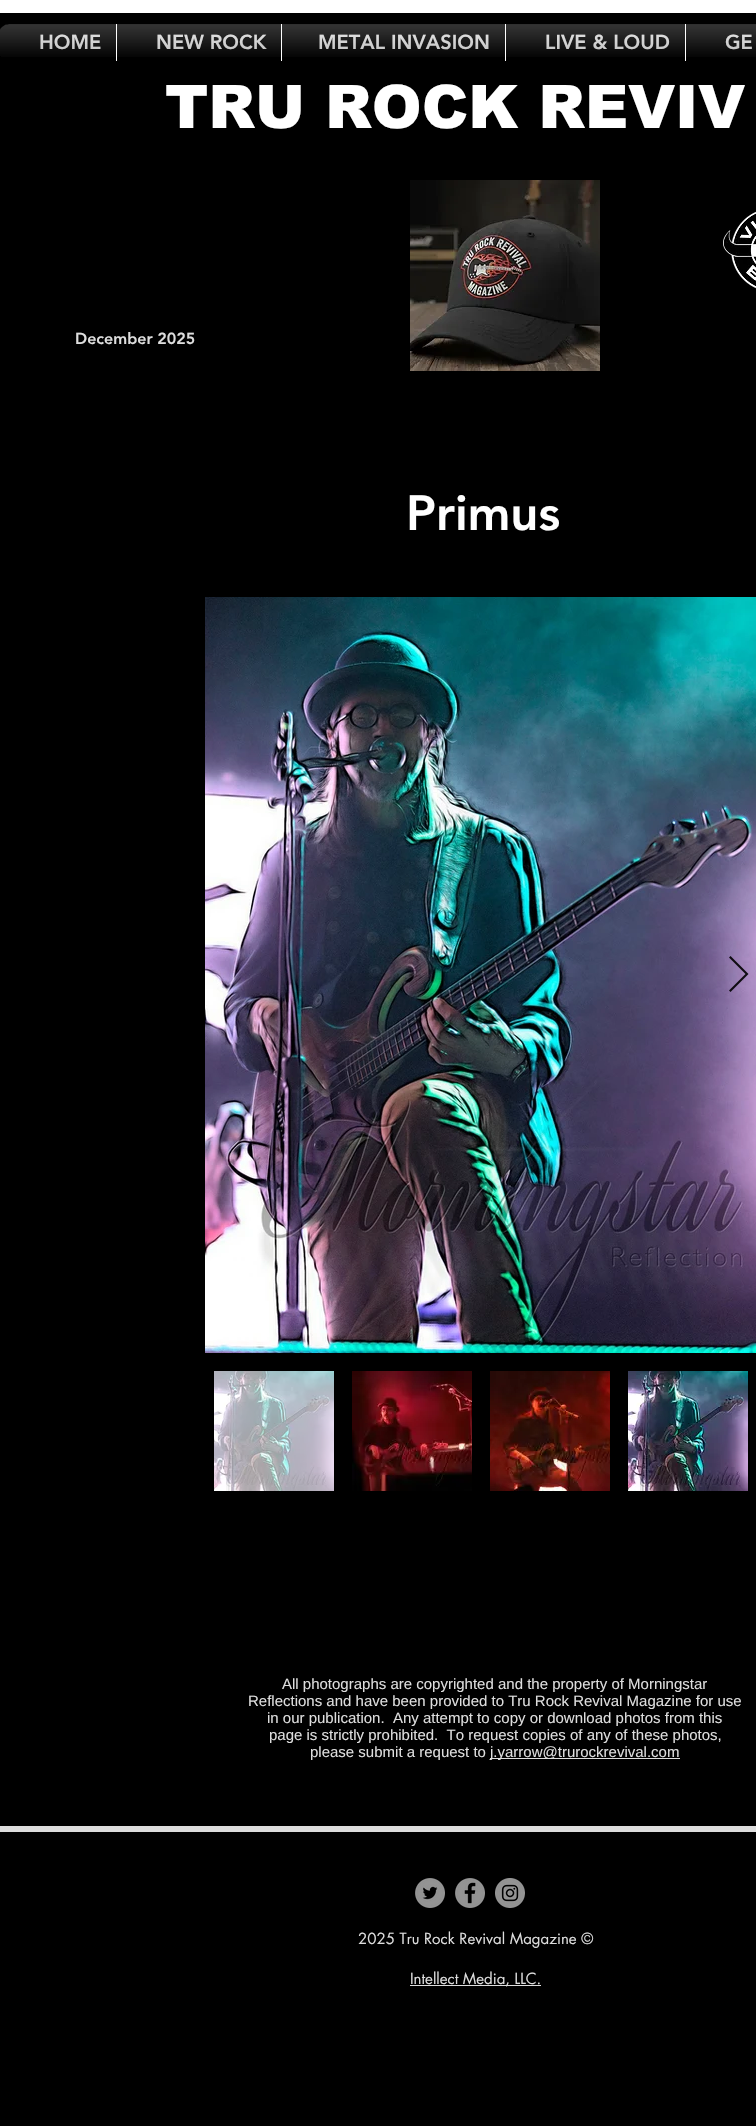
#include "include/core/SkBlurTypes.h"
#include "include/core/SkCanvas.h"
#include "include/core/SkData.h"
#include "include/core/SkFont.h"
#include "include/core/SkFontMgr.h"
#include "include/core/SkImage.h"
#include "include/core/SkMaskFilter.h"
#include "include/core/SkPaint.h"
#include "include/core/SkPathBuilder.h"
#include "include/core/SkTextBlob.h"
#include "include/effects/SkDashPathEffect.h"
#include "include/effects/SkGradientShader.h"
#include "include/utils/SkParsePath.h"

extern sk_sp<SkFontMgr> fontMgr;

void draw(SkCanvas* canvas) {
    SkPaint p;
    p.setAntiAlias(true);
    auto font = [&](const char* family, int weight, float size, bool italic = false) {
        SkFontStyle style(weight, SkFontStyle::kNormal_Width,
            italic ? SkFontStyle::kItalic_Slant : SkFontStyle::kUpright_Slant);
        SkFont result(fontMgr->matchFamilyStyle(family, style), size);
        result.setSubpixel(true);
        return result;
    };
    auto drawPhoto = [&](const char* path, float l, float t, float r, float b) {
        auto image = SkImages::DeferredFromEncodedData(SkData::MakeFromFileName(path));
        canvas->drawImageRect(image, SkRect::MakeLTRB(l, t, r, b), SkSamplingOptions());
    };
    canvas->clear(0xFF000000);
    p.setColor(0xFFFFFFFF);
    canvas->drawRect(SkRect::MakeLTRB(0, 0, 756, 13), p);
    drawPhoto("media/1.png", 0, 24, 9, 56);
    p.setColor(0xFF000000);
    canvas->drawPath(SkPathBuilder().moveTo(9, 24).lineTo(116, 24).lineTo(116, 61).lineTo(9, 61).cubicTo(3.5f, 61, -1, 56.5f, -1, 51).lineTo(-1, 34).cubicTo(-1, 28.5f, 3.5f, 24, 9, 24).close().detach(), p);
    auto font1 = font("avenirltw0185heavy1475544", 900, 20);
    p.setColor(0xFFDDDDDD);
    canvas->drawString("HOME", 39, 49, font1, p);
    drawPhoto("media/2.png", 0, 24, 116, 57);
    drawPhoto("media/3.png", 40, 35, 100, 50);
    p.setColor(0xFFFFFFFF);
    canvas->drawRect(SkRect::MakeLTRB(116, 24, 117, 61), p);
    p.setColor(0xFFDDDDDD);
    canvas->drawString("NEW ROCK", 156, 49, font1, p);
    drawPhoto("media/4.png", 117, 24, 281, 57);
    drawPhoto("media/5.png", 157, 35, 266, 50);
    p.setColor(0xFFFFFFFF);
    canvas->drawRect(SkRect::MakeLTRB(281, 24, 282, 61), p);
    p.setColor(0xFFDDDDDD);
    canvas->drawString("METAL INVASION", 318, 49, font1, p);
    drawPhoto("media/6.png", 282, 24, 505, 57);
    drawPhoto("media/7.png", 319, 35, 489, 50);
    p.setColor(0xFFFFFFFF);
    canvas->drawRect(SkRect::MakeLTRB(505, 24, 506, 61), p);
    p.setColor(0xFFDDDDDD);
    canvas->drawString("LIVE & LOUD", 545, 49, font1, p);
    drawPhoto("media/8.png", 506, 24, 685, 57);
    drawPhoto("media/9.png", 546, 35, 669, 50);
    p.setColor(0xFFFFFFFF);
    canvas->drawRect(SkRect::MakeLTRB(685, 24, 686, 61), p);
    p.setColor(0xFFDDDDDD);
    canvas->drawString("GE", 725, 49, font1, p);
    drawPhoto("media/10.png", 686, 24, 756, 57);
    drawPhoto("media/11.png", 725, 35, 756, 50);
    auto font2 = font("arial", 900, 60);
    p.setColor(0xFFFFFFFF);
    canvas->drawString("TRU ROCK REVIV", 165, 128, font2, p);
    drawPhoto("media/12.png", 410, 180, 600, 371);
    drawPhoto("media/13.png", 723, 211, 756, 289);
    auto font3 = font("avenirltw0185heavy1475544", 900, 16);
    p.setColor(0xFFDDDDDD);
    canvas->drawString("December 2025", 75, 344, font3, p);
    auto font4 = font("avenirltw0185heavy1475544", 900, 49);
    p.setColor(0xFFFFFFFF);
    canvas->drawString("Primus", 406, 530, font4, p);
    drawPhoto("media/14.png", 205, 597, 756, 1353);
    p.setColor(0xE6000000);
    canvas->drawPath(SkPathBuilder().moveTo(729, 957.5f).lineTo(730.5f, 956).lineTo(748.5f, 974).lineTo(730.5f, 992).lineTo(729, 990.5f).lineTo(745.5f, 974).close().detach(), p);
    drawPhoto("media/15.png", 214, 1371, 334, 1491);
    drawPhoto("media/16.png", 352, 1371, 472, 1491);
    drawPhoto("media/17.png", 490, 1371, 610, 1491);
    drawPhoto("media/18.png", 628, 1371, 748, 1491);
    auto font5 = font("Liberation Sans", 400, 15);
    p.setColor(0xFFDDDDDD);
    {
        const struct { const char* s; float x, y; } items[] = {
            {"All photographs are copyrighted and the property of Morningstar", 282, 1689},
            {"Reflections and have been provided to Tru Rock Revival Magazine for use", 248, 1706},
            {"in our publication.  Any attempt to copy or download photos from this", 267, 1723},
            {"page is strictly prohibited.  To request copies of any of these photos,", 269, 1740},
            {"please submit a request to", 310, 1757},
        };
        for (auto [s, x, y] : items) {
            canvas->drawString(s, x, y, font5, p);
        }
    }
    canvas->drawRect(SkRect::MakeLTRB(490, 1758, 680, 1759), p);
    canvas->drawString("j.yarrow@trurockrevival.com", 490, 1757, font5, p);
    canvas->drawRect(SkRect::MakeLTRB(0, 1826, 756, 1832), p);
    drawPhoto("media/19.png", 415, 1878, 445, 1908);
    drawPhoto("media/20.png", 455, 1878, 485, 1908);
    drawPhoto("media/21.png", 495, 1878, 525, 1908);
    auto font6 = font("futura", 400, 15);
    canvas->drawString("2025 Tru Rock Revival Magazine ©", 358, 1944, font6, p);
    canvas->drawRect(SkRect::MakeLTRB(410, 1985, 541, 1986), p);
    canvas->drawString("Intellect Media, LLC.", 410, 1984, font6, p);
}
